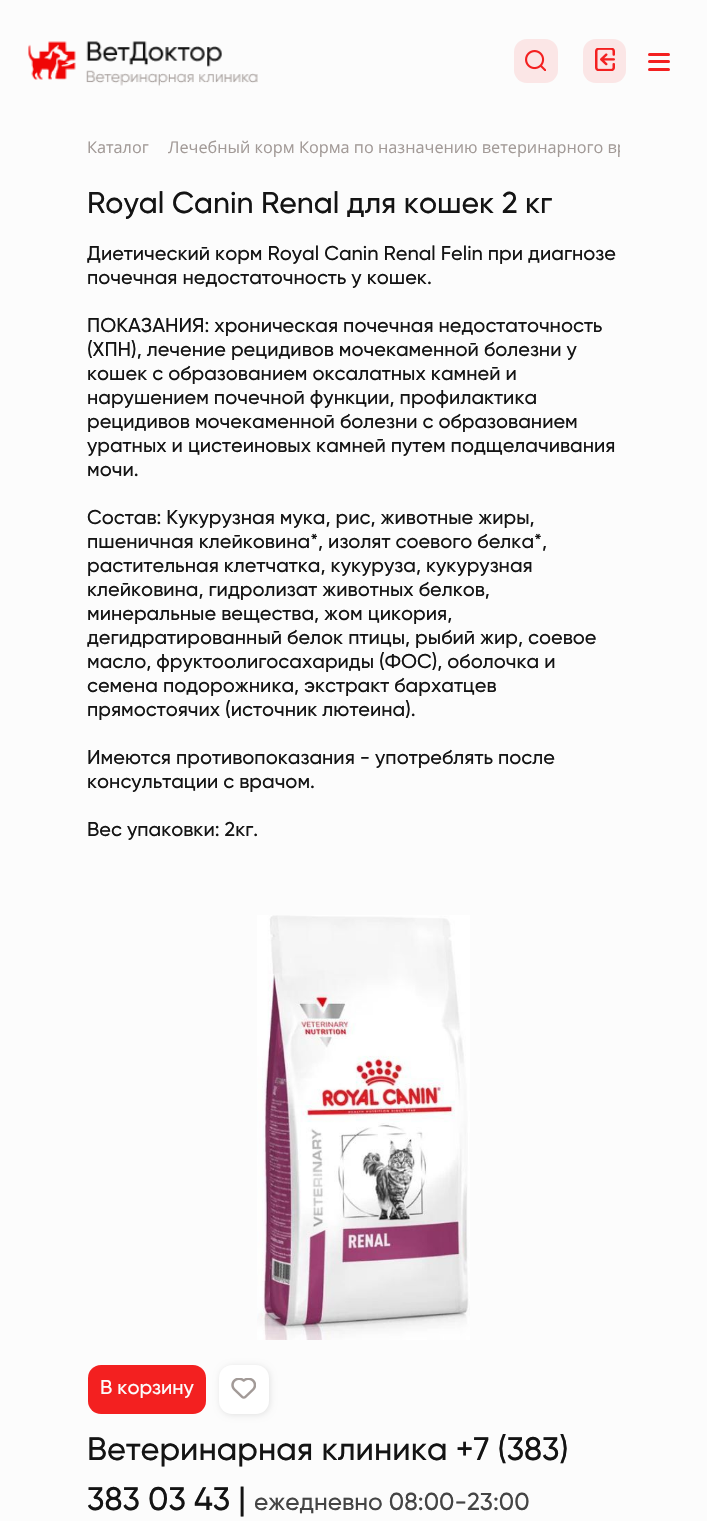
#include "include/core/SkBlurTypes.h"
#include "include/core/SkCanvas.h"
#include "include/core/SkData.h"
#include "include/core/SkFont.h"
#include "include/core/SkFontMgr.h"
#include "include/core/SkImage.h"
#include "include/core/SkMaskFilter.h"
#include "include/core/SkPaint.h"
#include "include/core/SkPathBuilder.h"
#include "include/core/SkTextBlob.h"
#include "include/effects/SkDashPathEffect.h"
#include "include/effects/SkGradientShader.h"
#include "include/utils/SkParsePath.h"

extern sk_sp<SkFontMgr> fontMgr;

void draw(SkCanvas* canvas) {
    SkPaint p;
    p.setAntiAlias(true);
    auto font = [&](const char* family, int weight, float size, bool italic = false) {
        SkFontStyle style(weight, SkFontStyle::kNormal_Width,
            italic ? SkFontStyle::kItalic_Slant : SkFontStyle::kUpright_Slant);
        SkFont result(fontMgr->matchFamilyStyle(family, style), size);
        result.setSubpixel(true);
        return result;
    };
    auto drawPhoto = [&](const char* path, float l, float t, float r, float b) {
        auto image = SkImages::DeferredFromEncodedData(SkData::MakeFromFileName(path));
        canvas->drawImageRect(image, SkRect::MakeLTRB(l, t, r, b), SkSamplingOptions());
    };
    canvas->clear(0xFFFCFCFC);
    drawPhoto("media/1.png", 28, 41, 258, 86);
    p.setColor(0xFFFBE6E6);
    canvas->drawRoundRect(SkRect::MakeLTRB(514, 39, 558, 83), 13, 13, p);
    drawPhoto("media/2.png", 525, 50, 546, 71);
    canvas->drawRoundRect(SkRect::MakeLTRB(583, 39, 626, 83), 13, 13, p);
    drawPhoto("media/3.png", 595, 48, 615, 71);
    p.setColor(0xFFF32020);
    canvas->drawRoundRect(SkRect::MakeLTRB(648, 53, 670, 56), 1.5f, 1.5f, p);
    canvas->drawRoundRect(SkRect::MakeLTRB(648, 60, 670, 63), 1.5f, 1.5f, p);
    canvas->drawRoundRect(SkRect::MakeLTRB(648, 68, 670, 71), 1.5f, 1.5f, p);
    auto font1 = font("Open Sans", 400, 16.25f);
    p.setColor(0xFFA29A97);
    canvas->drawString("Каталог", 87, 153, font1, p);
    canvas->save();
    canvas->clipRect(SkRect::MakeLTRB(88, 121, 620, 164));
    canvas->drawString("Лечебный корм Корма по назначению ветеринарного вр", 168, 153, font1, p);
    canvas->restore();
    auto font2 = font("Gilroy", 500, 30);
    p.setColor(0xFF141414);
    canvas->drawString("Royal Canin Renal для кошек 2 кг", 87, 213, font2, p);
    auto font3 = font("Gilroy", 500, 20);
    {
        const struct { const char* s; float x, y; } items[] = {
            {"Диетический корм Royal Canin Renal Felin при диагнозе", 87, 260},
            {"почечная недостаточность у кошек.", 87, 284},
            {"ПОКАЗАНИЯ: хроническая почечная недостаточность", 87, 332},
            {"(ХПН), лечение рецидивов мочекаменной болезни у", 87, 356},
            {"кошек с образованием оксалатных камней и", 87, 380},
            {"нарушением почечной функции, профилактика", 87, 404},
            {"рецидивов мочекаменной болезни с образованием", 87, 428},
            {"уратных и цистеиновых камней путем подщелачивания", 87, 452},
            {"мочи.", 87, 476},
            {"Состав: Кукурузная мука, рис, животные жиры,", 87, 524},
            {"пшеничная клейковина*, изолят соевого белка*,", 87, 548},
            {"растительная клетчатка, кукуруза, кукурузная", 87, 572},
            {"клейковина, гидролизат животных белков,", 87, 596},
            {"минеральные вещества, жом цикория,", 87, 620},
            {"дегидратированный белок птицы, рыбий жир, соевое", 87, 644},
            {"масло, фруктоолигосахариды (ФОС), оболочка и", 87, 668},
            {"семена подорожника, экстракт бархатцев", 87, 692},
            {"прямостоячих (источник лютеина).", 87, 716},
            {"Имеются противопоказания - употреблять после", 87, 764},
            {"консультации с врачом.", 87, 788},
            {"Вес упаковки: 2кг.", 87, 836},
        };
        for (auto [s, x, y] : items) {
            canvas->drawString(s, x, y, font3, p);
        }
    }
    drawPhoto("media/4.png", 257, 915, 470, 1340);
    p.setColor(0xFFF32020);
    canvas->drawRoundRect(SkRect::MakeLTRB(88, 1365, 206, 1414), 13, 13, p);
    p.setColor(0xFFFCFCFC);
    canvas->drawString("В корзину", 100, 1394, font3, p);
    p.setColor(0x1A000000);
    p.setMaskFilter(SkMaskFilter::MakeBlur(kNormal_SkBlurStyle, 3));
    canvas->drawRoundRect(SkRect::MakeLTRB(220, 1366, 270, 1415), 13, 13, p);
    p.setMaskFilter(nullptr);
    p.setColor(0xFFFFFFFF);
    canvas->drawRoundRect(SkRect::MakeLTRB(219, 1365, 269, 1414), 13, 13, p);
    drawPhoto("media/5.png", 231, 1378, 256, 1399);
    auto font4 = font("Gilroy", 500, 32.5f);
    p.setColor(0xFF141414);
    canvas->drawString("Ветеринарная клиника +7 (383)", 87, 1460, font4, p);
    canvas->drawString("383 03 43 |", 87, 1510, font4, p);
    auto font5 = font("Gilroy", 500, 24.4f);
    p.setColor(0xFF444444);
    canvas->drawString("ежедневно 08:00-23:00", 254, 1510, font5, p);
}
